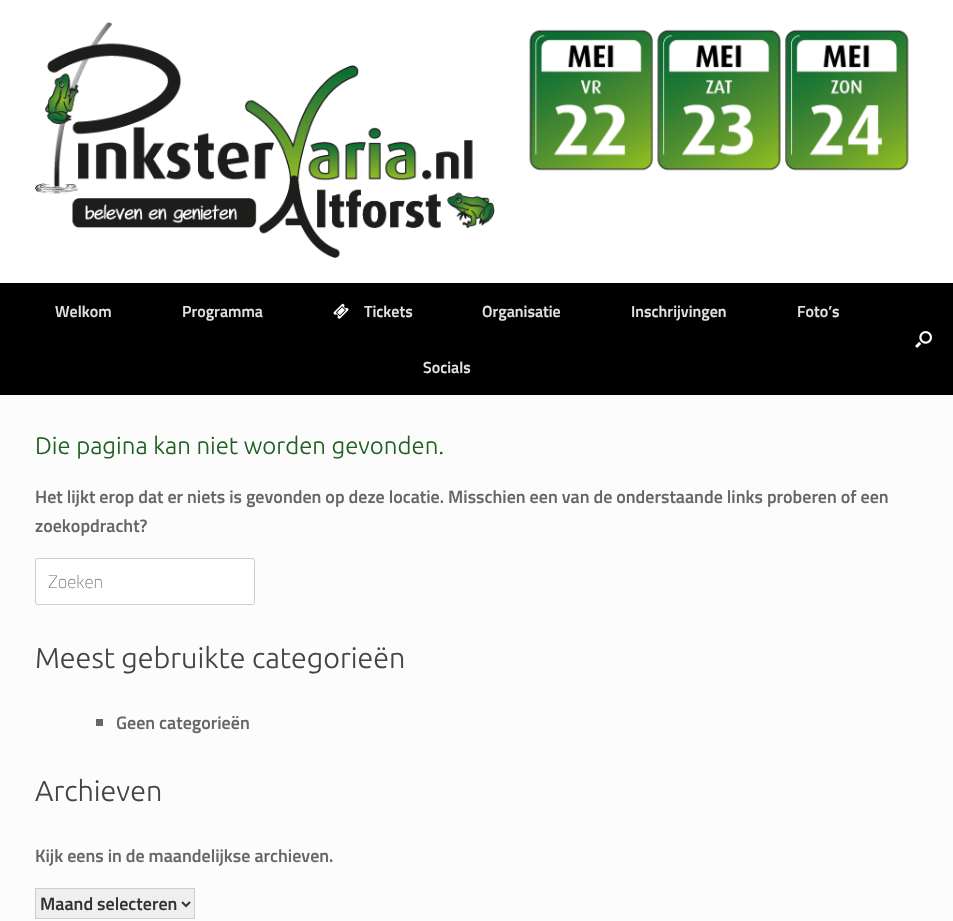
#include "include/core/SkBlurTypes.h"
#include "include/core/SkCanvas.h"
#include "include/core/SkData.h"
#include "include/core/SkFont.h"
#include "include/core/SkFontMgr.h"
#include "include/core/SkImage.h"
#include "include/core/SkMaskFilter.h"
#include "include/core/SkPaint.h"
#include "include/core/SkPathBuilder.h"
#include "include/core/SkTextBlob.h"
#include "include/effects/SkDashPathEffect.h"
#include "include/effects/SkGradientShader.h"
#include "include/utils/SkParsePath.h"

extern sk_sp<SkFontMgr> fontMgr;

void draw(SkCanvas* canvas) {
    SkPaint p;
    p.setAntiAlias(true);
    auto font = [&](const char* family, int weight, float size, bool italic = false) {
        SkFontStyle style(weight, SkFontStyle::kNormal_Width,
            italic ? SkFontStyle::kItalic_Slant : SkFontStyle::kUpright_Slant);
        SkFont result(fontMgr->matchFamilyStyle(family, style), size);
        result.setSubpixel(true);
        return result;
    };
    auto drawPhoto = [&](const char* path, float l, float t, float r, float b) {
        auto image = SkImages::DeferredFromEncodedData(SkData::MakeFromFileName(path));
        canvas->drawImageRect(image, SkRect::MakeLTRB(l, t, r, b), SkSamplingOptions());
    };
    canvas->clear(0xFFFFFFFF);
    drawPhoto("media/1.png", 35, 22, 495, 258);
    drawPhoto("media/2.png", 529, 29, 909, 171);
    p.setColor(0xFF000000);
    canvas->drawRect(SkRect::MakeLTRB(0, 283, 953, 395), p);
    auto font1 = font("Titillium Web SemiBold", 600, 16);
    p.setColor(0xFFE2E2E2);
    canvas->drawString("Welkom", 55, 317, font1, p);
    canvas->drawString("Programma", 182, 317, font1, p);
    drawPhoto("media/3.png", 333, 303, 349, 319);
    {
        const struct { const char* s; float x, y; } items[] = {
            {"Tickets", 364, 317},
            {"Organisatie", 482, 317},
            {"Inschrijvingen", 631, 317},
            {"Foto’s", 797, 317},
            {"Socials", 423, 373},
        };
        for (auto [s, x, y] : items) {
            canvas->drawString(s, x, y, font1, p);
        }
    }
    drawPhoto("media/4.png", 915, 331, 932, 348);
    p.setColor(0xFFFCFCFC);
    canvas->drawRect(SkRect::MakeLTRB(0, 395, 953, 921), p);
    auto font2 = font("Ubuntu", 300, 24);
    p.setColor(0xFF1E6021);
    canvas->drawString("Die pagina kan niet worden gevonden.", 35, 454, font2, p);
    auto font3 = font("Titillium Web SemiBold", 600, 18);
    p.setColor(0xFF666666);
    canvas->drawString("Het lijkt erop dat er niets is gevonden op deze locatie. Misschien een van de onderstaande links proberen of een", 35, 503, font3, p);
    canvas->drawString("zoekopdracht?", 35, 532, font3, p);
    p.setColor(0xFFFFFFFF);
    canvas->drawRoundRect(SkRect::MakeLTRB(35.5f, 558.5f, 254.5f, 604.5f), 2.5f, 2.5f, p);
    p.setStyle(SkPaint::kStroke_Style);
    p.setStrokeWidth(1);
    p.setColor(0xFFCCCCCC);
    canvas->drawRoundRect(SkRect::MakeLTRB(35.5f, 558.5f, 254.5f, 604.5f), 2.5f, 2.5f, p);
    auto font4 = font("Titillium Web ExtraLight", 200, 18);
    p.setStyle(SkPaint::kFill_Style);
    p.setColor(0xFF757575);
    canvas->drawString("Zoeken", 48, 588, font4, p);
    auto font5 = font("Ubuntu", 300, 28.75f);
    p.setColor(0xFF444444);
    canvas->drawString("Meest gebruikte categorieën", 35, 668, font5, p);
    p.setColor(0xFF666666);
    canvas->drawRect(SkRect::MakeLTRB(96, 719, 103, 726), p);
    canvas->drawString("Geen categorieën", 116, 729, font3, p);
    p.setColor(0xFF444444);
    canvas->drawString("Archieven", 35, 801, font5, p);
    p.setColor(0xFF666666);
    canvas->drawString("Kijk eens in de maandelijkse archieven.", 35, 862, font3, p);
    p.setColor(0xFFEFEFEF);
    canvas->drawRect(SkRect::MakeLTRB(35.5f, 888.5f, 194.5f, 918.5f), p);
    p.setStyle(SkPaint::kStroke_Style);
    p.setColor(0xFFCCCCCC);
    canvas->drawRect(SkRect::MakeLTRB(35.5f, 888.5f, 194.5f, 918.5f), p);
    p.setStrokeWidth(2);
    p.setColor(0xFF333333);
    canvas->drawPath(SkPathBuilder().moveTo(182, 902).lineTo(186, 906).lineTo(190, 902).detach(), p);
    p.setStyle(SkPaint::kFill_Style);
    canvas->drawString("Maand selecteren", 40, 910, font3, p);
}
